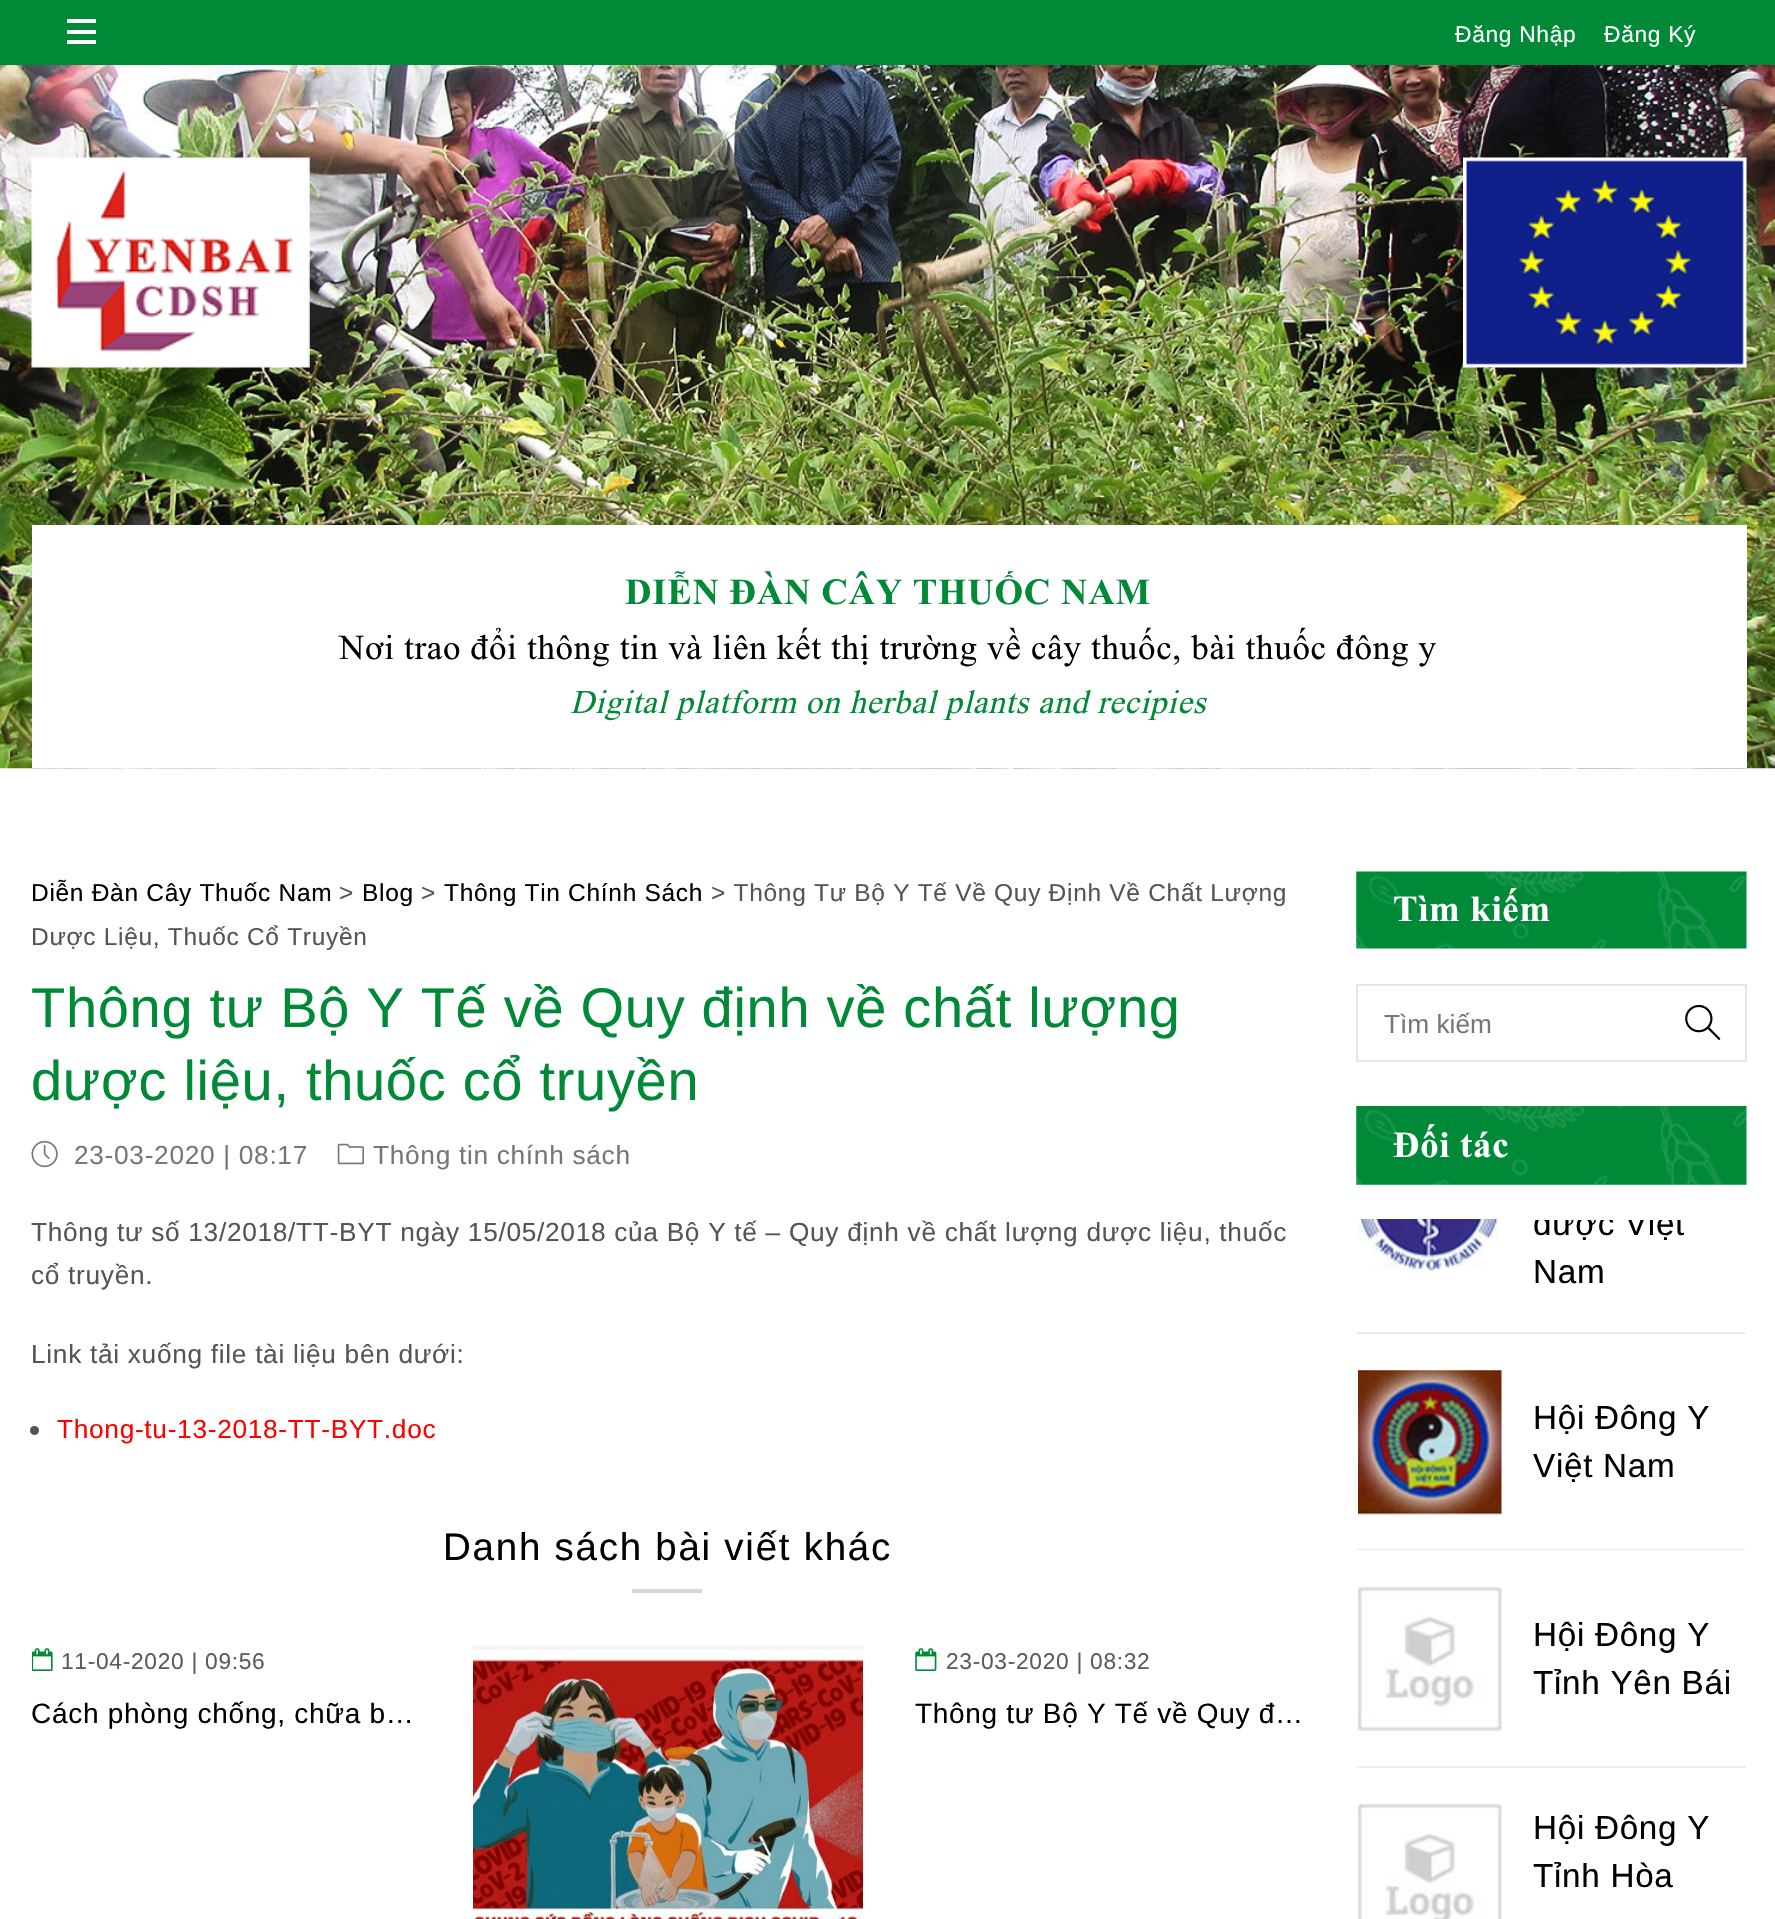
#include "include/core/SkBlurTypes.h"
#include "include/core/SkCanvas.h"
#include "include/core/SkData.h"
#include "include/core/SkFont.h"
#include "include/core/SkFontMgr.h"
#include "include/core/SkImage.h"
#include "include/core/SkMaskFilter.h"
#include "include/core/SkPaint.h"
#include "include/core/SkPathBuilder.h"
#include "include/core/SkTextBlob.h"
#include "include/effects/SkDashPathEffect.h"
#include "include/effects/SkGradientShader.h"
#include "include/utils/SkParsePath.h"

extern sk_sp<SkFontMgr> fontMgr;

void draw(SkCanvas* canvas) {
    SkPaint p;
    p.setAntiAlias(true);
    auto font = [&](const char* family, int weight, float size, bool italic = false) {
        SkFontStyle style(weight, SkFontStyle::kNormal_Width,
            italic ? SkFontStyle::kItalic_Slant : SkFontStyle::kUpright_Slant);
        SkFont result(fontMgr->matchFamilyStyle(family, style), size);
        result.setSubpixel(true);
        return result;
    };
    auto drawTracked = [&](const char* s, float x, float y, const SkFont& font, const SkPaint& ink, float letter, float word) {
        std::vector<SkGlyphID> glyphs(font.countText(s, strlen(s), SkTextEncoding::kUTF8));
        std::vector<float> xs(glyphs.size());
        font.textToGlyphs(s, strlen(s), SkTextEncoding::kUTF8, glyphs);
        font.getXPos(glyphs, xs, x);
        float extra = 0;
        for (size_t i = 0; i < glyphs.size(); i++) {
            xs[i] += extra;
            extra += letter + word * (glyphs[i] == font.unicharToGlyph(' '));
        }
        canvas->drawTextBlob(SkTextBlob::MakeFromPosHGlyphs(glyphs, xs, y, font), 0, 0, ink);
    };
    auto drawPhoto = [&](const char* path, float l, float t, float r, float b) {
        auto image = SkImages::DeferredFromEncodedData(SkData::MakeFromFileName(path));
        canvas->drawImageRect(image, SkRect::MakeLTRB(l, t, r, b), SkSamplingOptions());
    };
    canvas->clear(0xFFFFFFFF);
    {
        const struct { float l, t, r, b; SkColor color; } items[] = {
            {0, 0, 1775, 65, 0xFF008937},
            {67, 30, 96, 34, 0xFFFFFFFF},
            {67, 19, 96, 23, 0xFFFFFFFF},
            {67, 40, 96, 44, 0xFFFFFFFF},
        };
        for (auto [l, t, r, b, color] : items) {
            p.setColor(color);
            canvas->drawRect(SkRect::MakeLTRB(l, t, r, b), p);
        }
    }
    auto font1 = font("Liberation Sans", 400, 22.75f);
    drawTracked("Đăng Nhập", 1455, 42, font1, p, 0.7f, 0);
    drawTracked("Đăng Ký", 1604, 42, font1, p, 0.7f, 0);
    drawPhoto("media/1.png", 0, 65, 1775, 769);
    drawPhoto("media/2.png", 31, 157, 310, 368);
    drawPhoto("media/3.png", 1463, 157, 1747, 368);
    canvas->drawRect(SkRect::MakeLTRB(32, 525, 1747, 768), p);
    auto font2 = font("Times New Roman", 700, 36.75f);
    p.setColor(0xFF008937);
    drawTracked("DIỄN ĐÀN CÂY THUỐC NAM", 625, 604, font2, p, 0.7f, 0);
    auto font3 = font("Times New Roman", 400, 35);
    p.setColor(0xFF000000);
    drawTracked("Nơi trao đổi thông tin và liên kết thị trường về cây thuốc, bài thuốc đông y", 339, 659, font3, p, 0.7f, 0);
    auto font4 = font("Times New Roman", 400, 33.25f, true);
    p.setColor(0xFF008937);
    drawTracked("Digital platform on herbal plants and recipies", 570, 713, font4, p, 0.7f, 0);
    auto font5 = font("Liberation Sans", 400, 24.5f);
    p.setColor(0xFF000000);
    drawTracked("Diễn Đàn Cây Thuốc Nam", 31, 901, font5, p, 0.7f, 0);
    p.setColor(0xFF555555);
    drawTracked(">", 339, 901, font5, p, 0.7f, 0);
    p.setColor(0xFF000000);
    drawTracked("Blog", 362, 901, font5, p, 0.7f, 0);
    p.setColor(0xFF555555);
    drawTracked(">", 421, 901, font5, p, 0.7f, 0);
    p.setColor(0xFF000000);
    drawTracked("Thông Tin Chính Sách", 444, 901, font5, p, 0.7f, 0);
    p.setColor(0xFF555555);
    drawTracked("> Thông Tư Bộ Y Tế Về Quy Định Về Chất Lượng", 711, 901, font5, p, 0.7f, 0);
    drawTracked("Dược Liệu, Thuốc Cổ Truyền", 31, 945, font5, p, 0.7f, 0);
    auto font6 = font("Liberation Sans", 400, 56);
    p.setColor(0xFF008937);
    drawTracked("Thông tư Bộ Y Tế về Quy định về chất lượng", 31, 1027, font6, p, 0.7f, 0);
    drawTracked("dược liệu, thuốc cổ truyền", 31, 1100, font6, p, 0.7f, 0);
    drawPhoto("media/4.png", 31, 1140, 58, 1168);
    auto font7 = font("Liberation Sans", 400, 26.25f);
    p.setColor(0xFF777777);
    drawTracked("23-03-2020 | 08:17", 74, 1164, font7, p, 0.7f, 0);
    drawPhoto("media/5.png", 337, 1143, 364, 1165);
    drawTracked("Thông tin chính sách", 373, 1164, font7, p, 0.7f, 0);
    p.setColor(0xFF555555);
    {
        const struct { const char* s; float x, y; } items[] = {
            {"Thông tư số 13/2018/TT-BYT ngày 15/05/2018 của Bộ Y tế – Quy định về chất lượng dược liệu, thuốc", 31, 1241},
            {"cổ truyền.", 31, 1284},
            {"Link tải xuống file tài liệu bên dưới:", 31, 1363},
        };
        for (auto [s, x, y] : items) {
            drawTracked(s, x, y, font7, p, 0.7f, 0);
        }
    }
    canvas->drawCircle(34.5f, 1430.5f, 4.5f, p);
    p.setColor(0xFFFF0000);
    drawTracked("Thong-tu-13-2018-TT-BYT.doc", 57, 1438, font7, p, 0.7f, 0);
    auto font8 = font("Liberation Sans", 400, 38.5f);
    p.setColor(0xFF000000);
    drawTracked("Danh sách bài viết khác", 443, 1560, font8, p, 1.75f, 0);
    p.setColor(0xFFD7D7D7);
    canvas->drawRect(SkRect::MakeLTRB(632, 1589, 702, 1593), p);
    drawPhoto("media/6.png", 32, 1648, 53, 1671);
    p.setColor(0xFF5C5C5C);
    drawTracked("11-04-2020 | 09:56", 61, 1669, font1, p, 0.7f, 0);
    auto font9 = font("Liberation Sans", 400, 28);
    p.setColor(0xFF000000);
    drawTracked("Cách phòng chống, chữa b…", 31, 1723, font9, p, 0.7f, 0);
    drawPhoto("media/7.png", 473, 1645, 863, 1919);
    drawPhoto("media/8.png", 915, 1648, 937, 1671);
    p.setColor(0xFF5C5C5C);
    drawTracked("23-03-2020 | 08:32", 946, 1669, font1, p, 0.7f, 0);
    p.setColor(0xFF000000);
    drawTracked("Thông tư Bộ Y Tế về Quy đ…", 915, 1723, font9, p, 0.7f, 0);
    drawPhoto("media/9.png", 1356, 871, 1747, 949);
    p.setColor(0xFFFFFFFF);
    drawTracked("Tìm kiếm", 1393, 921, font2, p, 0.7f, 0);
    p.setStyle(SkPaint::kStroke_Style);
    p.setStrokeWidth(2);
    p.setColor(0xFFE6E6E6);
    canvas->drawRect(SkRect::MakeLTRB(1357, 985, 1746, 1061), p);
    p.setStyle(SkPaint::kFill_Style);
    p.setColor(0xFF777777);
    canvas->drawString("Tìm kiếm", 1384, 1033, font7, p);
    drawPhoto("media/10.png", 1685, 1004, 1721, 1040);
    drawPhoto("media/11.png", 1356, 1106, 1747, 1185);
    p.setColor(0xFFFFFFFF);
    drawTracked("Đối tác", 1393, 1157, font2, p, 0.7f, 0);
    p.setColor(0xFFEBEBEB);
    canvas->drawPath(SkPathBuilder().moveTo(1746, 1334).lineTo(1356, 1334).lineTo(1358, 1332).lineTo(1745, 1332).close().detach(), p);
    drawPhoto("media/12.png", 1358, 1219, 1499, 1272);
    canvas->save();
    canvas->clipRect(SkRect::MakeLTRB(1356, 1220, 1747, 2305));
    auto font10 = font("Liberation Sans", 400, 33.25f);
    p.setColor(0xFF000000);
    drawTracked("dược Việt", 1533, 1235, font10, p, 0.7f, 0);
    canvas->restore();
    drawTracked("Nam", 1533, 1283, font10, p, 0.7f, 0);
    p.setColor(0xFFEBEBEB);
    canvas->drawPath(SkPathBuilder().moveTo(1746, 1550).lineTo(1356, 1550).lineTo(1358, 1549).lineTo(1745, 1549).close().detach(), p);
    drawPhoto("media/13.png", 1358, 1370, 1502, 1515);
    p.setColor(0xFF000000);
    drawTracked("Hội Đông Y", 1533, 1429, font10, p, 0.7f, 0);
    drawTracked("Việt Nam", 1533, 1477, font10, p, 0.7f, 0);
    p.setColor(0xFFEBEBEB);
    canvas->drawPath(SkPathBuilder().moveTo(1746, 1768).lineTo(1356, 1768).lineTo(1358, 1766).lineTo(1745, 1766).close().detach(), p);
    drawPhoto("media/14.png", 1358, 1587, 1502, 1732);
    p.setColor(0xFF000000);
    drawTracked("Hội Đông Y", 1533, 1646, font10, p, 0.7f, 0);
    drawTracked("Tỉnh Yên Bái", 1533, 1694, font10, p, 0.7f, 0);
    drawPhoto("media/15.png", 1358, 1804, 1502, 1919);
    drawTracked("Hội Đông Y", 1533, 1839, font10, p, 0.7f, 0);
    drawTracked("Tỉnh Hòa", 1533, 1887, font10, p, 0.7f, 0);
}
